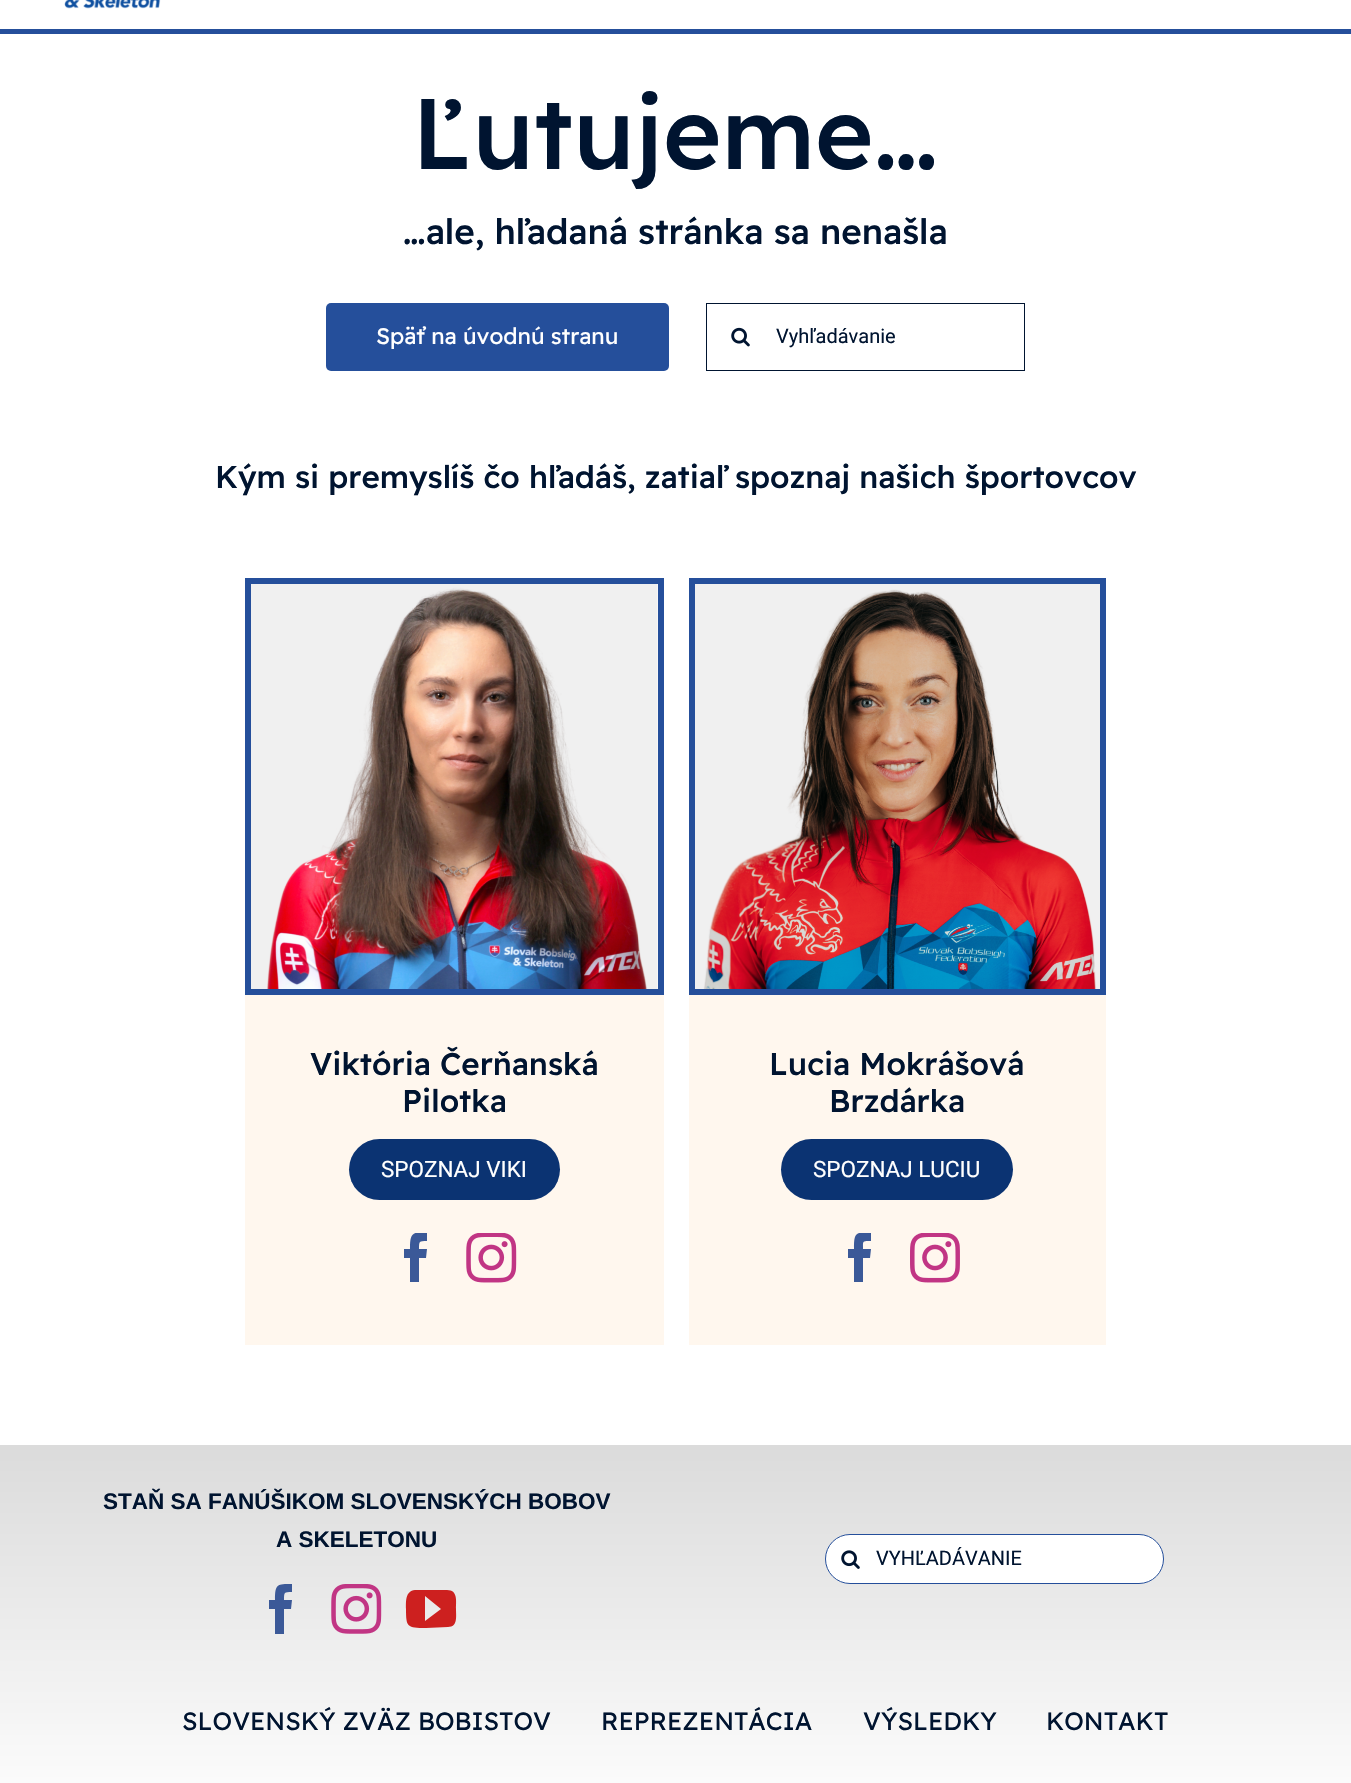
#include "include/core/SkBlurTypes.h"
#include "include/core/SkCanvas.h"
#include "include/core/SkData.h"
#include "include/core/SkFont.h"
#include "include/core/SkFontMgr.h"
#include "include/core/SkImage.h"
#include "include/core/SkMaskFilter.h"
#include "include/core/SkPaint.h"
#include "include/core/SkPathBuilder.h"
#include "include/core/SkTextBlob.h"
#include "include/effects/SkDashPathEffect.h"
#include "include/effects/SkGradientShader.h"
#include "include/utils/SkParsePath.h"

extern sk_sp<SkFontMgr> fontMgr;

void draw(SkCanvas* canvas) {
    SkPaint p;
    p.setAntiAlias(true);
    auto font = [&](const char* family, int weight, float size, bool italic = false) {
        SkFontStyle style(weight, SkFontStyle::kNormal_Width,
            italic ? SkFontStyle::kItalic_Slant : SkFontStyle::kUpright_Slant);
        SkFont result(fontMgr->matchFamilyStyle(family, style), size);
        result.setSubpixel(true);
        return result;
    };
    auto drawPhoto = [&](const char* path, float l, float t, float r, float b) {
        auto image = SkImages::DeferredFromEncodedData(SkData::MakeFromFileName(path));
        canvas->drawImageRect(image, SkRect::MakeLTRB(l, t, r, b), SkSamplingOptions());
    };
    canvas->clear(0xFFFFFFFF);
    drawPhoto("media/1.png", 64, 0, 161, 9);
    p.setColor(0xFF254F9B);
    canvas->drawRect(SkRect::MakeLTRB(0, 29, 1351, 34), p);
    auto font1 = font("Readex Pro", 500, 100);
    p.setColor(0xFF001430);
    canvas->drawString("Ľutujeme…", 412, 169, font1, p);
    auto font2 = font("Readex Pro", 500, 35);
    canvas->drawString("…ale, hľadaná stránka sa nenašla", 403, 244, font2, p);
    p.setColor(0xFF254F9B);
    canvas->drawRoundRect(SkRect::MakeLTRB(326, 303, 669, 371), 5, 5, p);
    auto font3 = font("Readex Pro", 400, 22.5f);
    p.setColor(0xFFFFFFFF);
    canvas->drawString("Späť na úvodnú stranu", 376, 344, font3, p);
    p.setStyle(SkPaint::kStroke_Style);
    p.setStrokeWidth(1);
    p.setColor(0xFF001430);
    canvas->drawRect(SkRect::MakeLTRB(706.5f, 303.5f, 1024.5f, 370.5f), p);
    drawPhoto("media/2.png", 731, 327, 750, 347);
    auto font4 = font("Roboto", 400, 20);
    p.setStyle(SkPaint::kFill_Style);
    canvas->drawString("Vyhľadávanie", 776, 343, font4, p);
    auto font5 = font("Readex Pro", 500, 31.25f);
    canvas->drawString("Kým si premyslíš čo hľadáš, zatiaľ spoznaj našich športovcov", 215, 488, font5, p);
    p.setStyle(SkPaint::kStroke_Style);
    p.setStrokeWidth(6);
    p.setColor(0xFF254F9B);
    canvas->drawRect(SkRect::MakeLTRB(248, 581, 661, 992), p);
    drawPhoto("media/3.png", 251, 584, 658, 989);
    p.setStyle(SkPaint::kFill_Style);
    p.setColor(0xFFFFF7EE);
    canvas->drawRect(SkRect::MakeLTRB(245, 995, 664, 1345), p);
    p.setColor(0xFF001430);
    canvas->drawString("Viktória Čerňanská", 310, 1075, font5, p);
    canvas->drawString("Pilotka", 402, 1112, font5, p);
    p.setColor(0xFF0B3372);
    canvas->drawRoundRect(SkRect::MakeLTRB(349, 1139, 560, 1200), 30.5f, 30.5f, p);
    auto font6 = font("Roboto", 400, 22.5f);
    p.setColor(0xFFFFFFFF);
    canvas->drawString("SPOZNAJ VIKI", 381, 1177, font6, p);
    canvas->save();
    canvas->clipRect(SkRect::MakeLTRB(295, 1233, 614, 1295));
    p.setColor(0xFF3B5998);
    canvas->drawPath(SkPathBuilder().moveTo(419, 1282).lineTo(410, 1282).lineTo(410, 1258).lineTo(404, 1258).lineTo(404, 1249).lineTo(410, 1249).cubicTo(410, 1233, 412, 1232, 427, 1232).lineTo(427, 1241).cubicTo(419, 1241, 419, 1241, 419, 1249).lineTo(427, 1249).lineTo(426, 1258).lineTo(419, 1258).close().detach(), p);
    canvas->restore();
    drawPhoto("media/4.png", 466, 1233, 517, 1283);
    p.setStyle(SkPaint::kStroke_Style);
    p.setColor(0xFF254F9B);
    canvas->drawRect(SkRect::MakeLTRB(692, 581, 1103, 992), p);
    drawPhoto("media/5.png", 695, 584, 1100, 989);
    p.setStyle(SkPaint::kFill_Style);
    p.setColor(0xFFFFF7EE);
    canvas->drawRect(SkRect::MakeLTRB(689, 995, 1106, 1345), p);
    p.setColor(0xFF001430);
    canvas->drawString("Lucia Mokrášová", 769, 1075, font5, p);
    canvas->drawString("Brzdárka", 829, 1112, font5, p);
    p.setColor(0xFF0B3372);
    canvas->drawRoundRect(SkRect::MakeLTRB(781, 1139, 1013, 1200), 30.5f, 30.5f, p);
    p.setColor(0xFFFFFFFF);
    canvas->drawString("SPOZNAJ LUCIU", 813, 1177, font6, p);
    canvas->save();
    canvas->clipRect(SkRect::MakeLTRB(739, 1233, 1056, 1295));
    p.setColor(0xFF3B5998);
    canvas->drawPath(SkPathBuilder().moveTo(863, 1282).lineTo(854, 1282).lineTo(854, 1258).lineTo(848, 1258).lineTo(848, 1249).lineTo(854, 1249).cubicTo(854, 1233, 855, 1232, 871, 1232).lineTo(871, 1241).cubicTo(862, 1241, 863, 1241, 863, 1249).lineTo(871, 1249).lineTo(870, 1258).lineTo(863, 1258).close().detach(), p);
    canvas->restore();
    drawPhoto("media/6.png", 910, 1233, 960, 1283);
    {
        const SkColor colors[] = {0xFFDBDBDB, 0xFFFFFFFF};
        const float stops[] = {0, 1};
        const SkPoint ends[] = {{676, 1445}, {676, 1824}};
        p.setShader(SkGradientShader::MakeLinear(ends, colors, stops, 2, SkTileMode::kClamp));
        p.setAlpha(255);
    }
    canvas->drawRect(SkRect::MakeLTRB(0, 1445, 1351, 1783), p);
    auto font7 = font("Liberation Sans", 700, 22.5f);
    p.setShader(nullptr);
    p.setColor(0xFF001430);
    canvas->drawString("STAŇ SA FANÚŠIKOM SLOVENSKÝCH BOBOV", 103, 1509, font7, p);
    canvas->drawString("A SKELETONU", 276, 1547, font7, p);
    p.setColor(0xFF3B5998);
    canvas->drawPath(SkPathBuilder().moveTo(284, 1634).lineTo(275, 1634).lineTo(275, 1609).lineTo(269, 1609).lineTo(269, 1600).lineTo(275, 1600).cubicTo(275, 1584, 277, 1584, 292, 1584).lineTo(292, 1592).cubicTo(284, 1592, 284, 1592, 284, 1600).lineTo(292, 1600).lineTo(291, 1609).lineTo(284, 1609).close().detach(), p);
    drawPhoto("media/7.png", 331, 1584, 382, 1634);
    p.setColor(0xFFCD201F);
    canvas->drawPath(SkPathBuilder().moveTo(447, 1590).lineTo(415, 1590).cubicTo(405, 1591, 406, 1602, 406, 1609).cubicTo(406, 1627, 407, 1628, 426, 1628).lineTo(448, 1627).cubicTo(458, 1627, 456, 1616, 456, 1609).cubicTo(456, 1601, 458, 1590, 447, 1590).close().moveTo(425, 1621).lineTo(425, 1596).lineTo(441, 1609).close().detach(), p);
    p.setColor(0xFFFFFFFF);
    canvas->drawRoundRect(SkRect::MakeLTRB(825.5f, 1534.5f, 1163.5f, 1583.5f), 24.5f, 24.5f, p);
    p.setStyle(SkPaint::kStroke_Style);
    p.setStrokeWidth(1);
    p.setColor(0xFF254F9B);
    canvas->drawRoundRect(SkRect::MakeLTRB(825.5f, 1534.5f, 1163.5f, 1583.5f), 24.5f, 24.5f, p);
    drawPhoto("media/8.png", 841, 1550, 860, 1569);
    p.setStyle(SkPaint::kFill_Style);
    p.setColor(0xFF001430);
    canvas->drawString("VYHĽADÁVANIE", 876, 1565, font4, p);
    auto font8 = font("Readex Pro", 400, 25);
    {
        const struct { const char* s; float x, y; } items[] = {
            {"SLOVENSKÝ ZVÄZ BOBISTOV", 182, 1730},
            {"REPREZENTÁCIA", 601, 1730},
            {"VÝSLEDKY", 863, 1730},
            {"KONTAKT", 1046, 1730},
        };
        for (auto [s, x, y] : items) {
            canvas->drawString(s, x, y, font8, p);
        }
    }
}
